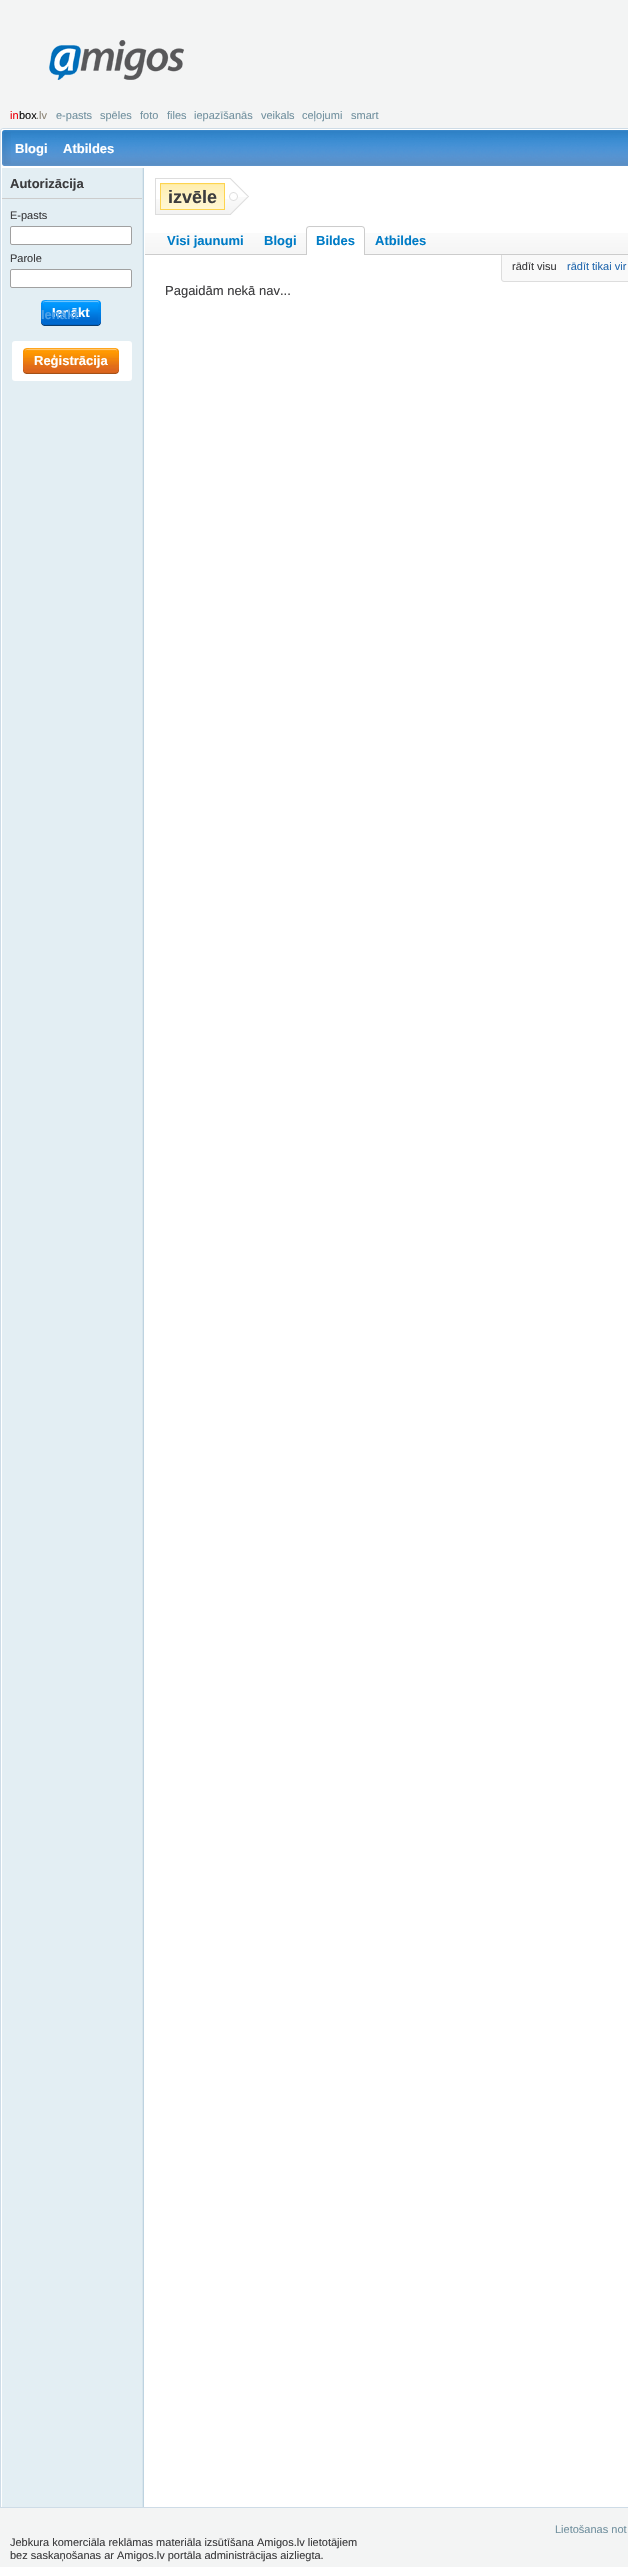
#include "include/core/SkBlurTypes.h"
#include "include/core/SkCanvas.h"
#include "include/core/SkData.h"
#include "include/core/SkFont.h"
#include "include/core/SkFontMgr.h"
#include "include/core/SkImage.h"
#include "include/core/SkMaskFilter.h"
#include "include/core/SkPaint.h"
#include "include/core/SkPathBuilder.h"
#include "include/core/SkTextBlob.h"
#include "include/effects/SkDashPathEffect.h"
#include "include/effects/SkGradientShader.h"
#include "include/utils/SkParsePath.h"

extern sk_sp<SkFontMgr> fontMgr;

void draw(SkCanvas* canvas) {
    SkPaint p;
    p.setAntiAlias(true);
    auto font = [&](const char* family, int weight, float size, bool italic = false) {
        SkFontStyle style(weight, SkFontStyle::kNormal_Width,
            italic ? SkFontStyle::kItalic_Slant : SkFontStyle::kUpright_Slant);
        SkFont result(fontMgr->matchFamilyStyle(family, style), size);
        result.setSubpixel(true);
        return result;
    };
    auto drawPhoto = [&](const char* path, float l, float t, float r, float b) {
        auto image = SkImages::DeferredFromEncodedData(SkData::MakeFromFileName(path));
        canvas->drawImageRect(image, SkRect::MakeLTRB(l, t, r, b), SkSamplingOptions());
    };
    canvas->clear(0xFFFFFFFF);
    drawPhoto("media/1.png", 2, 168, 144, 2507);
    p.setColor(0xFFCEDCE7);
    canvas->drawRect(SkRect::MakeLTRB(0, 166, 1, 2507), p);
    p.setColor(0xFFF3F4F4);
    canvas->drawRect(SkRect::MakeLTRB(0, 0, 628, 128), p);
    drawPhoto("media/2.png", 49, 40, 184, 80);
    auto font1 = font("Liberation Sans", 400, 11);
    p.setColor(0xFFEB000C);
    canvas->drawString("in", 10, 119, font1, p);
    p.setColor(0xFF0D0C0B);
    canvas->drawString("box", 19, 119, font1, p);
    p.setColor(0xFF8D8577);
    canvas->drawString(".lv", 36, 119, font1, p);
    p.setColor(0xFF7392A0);
    {
        const struct { const char* s; float x, y; } items[] = {
            {"e-pasts", 56, 119},
            {"spēles", 100, 119},
            {"foto", 140, 119},
            {"files", 167, 119},
            {"iepazīšanās", 194, 119},
            {"veikals", 261, 119},
            {"ceļojumi", 302, 119},
            {"smart", 351, 119},
        };
        for (auto [s, x, y] : items) {
            canvas->drawString(s, x, y, font1, p);
        }
    }
    drawPhoto("media/3.png", 11, 128, 628, 166);
    drawPhoto("media/4.png", 0, 128, 11, 166);
    auto font2 = font("Liberation Sans", 700, 13);
    p.setColor(0xFFFFFFFF);
    canvas->drawString("Blogi", 15, 153, font2, p);
    canvas->drawString("Atbildes", 63, 153, font2, p);
    p.setColor(0xFFE3EEF3);
    canvas->drawPath(SkPathBuilder().moveTo(2, 458).lineTo(2, 166).lineTo(142, 168).lineTo(142, 458).close().detach(), p);
    p.setColor(0xFFFFFFFF);
    canvas->drawRect(SkRect::MakeLTRB(1, 166, 142, 168), p);
    p.setColor(0xFFCCCCCC);
    canvas->drawRect(SkRect::MakeLTRB(2, 198, 142, 199), p);
    p.setColor(0xFF3C3C3E);
    canvas->drawString("Autorizācija", 10, 188, font2, p);
    canvas->drawString("E-pasts", 10, 219, font1, p);
    p.setColor(0xFFFFFFFF);
    canvas->drawRoundRect(SkRect::MakeLTRB(10.5f, 226.5f, 131.5f, 244.5f), 1.5f, 1.5f, p);
    p.setStyle(SkPaint::kStroke_Style);
    p.setStrokeWidth(1);
    p.setColor(0xFFA0A0A0);
    canvas->drawRoundRect(SkRect::MakeLTRB(10.5f, 226.5f, 131.5f, 244.5f), 1.5f, 1.5f, p);
    p.setStyle(SkPaint::kFill_Style);
    p.setColor(0xFF3C3C3E);
    canvas->drawString("Parole", 10, 262, font1, p);
    p.setColor(0xFFFFFFFF);
    canvas->drawRoundRect(SkRect::MakeLTRB(10.5f, 269.5f, 131.5f, 287.5f), 1.5f, 1.5f, p);
    p.setStyle(SkPaint::kStroke_Style);
    p.setColor(0xFFA0A0A0);
    canvas->drawRoundRect(SkRect::MakeLTRB(10.5f, 269.5f, 131.5f, 287.5f), 1.5f, 1.5f, p);
    drawPhoto("media/5.png", 98, 300, 101, 326);
    drawPhoto("media/6.png", 41, 300, 98, 326);
    p.setStyle(SkPaint::kFill_Style);
    p.setColor(0xFFFFFFFF);
    canvas->drawString("Ienākt", 52, 317, font2, p);
    p.setColor(0xFF4EA1E8);
    canvas->drawString("Ienākt", 41, 319, font2, p);
    p.setColor(0xFFFFFFFF);
    canvas->drawRoundRect(SkRect::MakeLTRB(12, 341, 132, 381), 3, 3, p);
    drawPhoto("media/7.png", 116, 348, 119, 374);
    drawPhoto("media/8.png", 23, 348, 116, 374);
    canvas->drawString("Reģistrācija", 34, 365, font2, p);
    drawPhoto("media/9.png", 156, 199, 229, 214);
    {
        const struct { float l, t, r, b; SkColor color; } items[] = {
            {155, 178, 229, 179, 0xFFDDDDDD},
            {155, 214, 229, 215, 0xFFDDDDDD},
            {155, 178, 156, 215, 0xFFDDDDDD},
        };
        for (auto [l, t, r, b, color] : items) {
            p.setColor(color);
            canvas->drawRect(SkRect::MakeLTRB(l, t, r, b), p);
        }
    }
    drawPhoto("media/10.png", 161, 184, 224, 209);
    p.setStyle(SkPaint::kStroke_Style);
    p.setColor(0xFFFDD44F);
    canvas->drawRect(SkRect::MakeLTRB(160.5f, 183.5f, 224.5f, 209.5f), p);
    auto font3 = font("Liberation Sans", 700, 18);
    p.setStyle(SkPaint::kFill_Style);
    p.setColor(0xFF3C3C3E);
    canvas->drawString("izvēle", 168, 203, font3, p);
    drawPhoto("media/11.png", 229, 178, 249, 215);
    p.setColor(0xFFF9F9F9);
    canvas->drawPath(SkPathBuilder().moveTo(501, 255).lineTo(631, 255).lineTo(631, 279).cubicTo(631, 280.5f, 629.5f, 282, 628, 282).lineTo(504, 282).cubicTo(502.5f, 282, 501, 280.5f, 501, 279).close().detach(), p);
    p.setStyle(SkPaint::kStroke_Style);
    p.setColor(0xFFDDDDDD);
    canvas->drawRoundRect(SkRect::MakeLTRB(501.5f, 252.5f, 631.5f, 281.5f), 2.5f, 2.5f, p);
    drawPhoto("media/12.png", 145, 233, 628, 255);
    p.setStyle(SkPaint::kFill_Style);
    p.setColor(0xFF007CC6);
    canvas->drawString("Visi jaunumi", 167, 245, font2, p);
    canvas->drawString("Blogi", 264, 245, font2, p);
    drawPhoto("media/13.png", 309, 226, 365, 255);
    drawPhoto("media/14.png", 306, 226, 309, 255);
    canvas->drawString("Bildes", 316, 245, font2, p);
    canvas->drawString("Atbildes", 375, 245, font2, p);
    p.setColor(0xFF3C3C3E);
    canvas->drawString("rādīt visu", 512, 270, font1, p);
    p.setColor(0xFF2469AF);
    canvas->drawString("rādīt tikai vir", 567, 270, font1, p);
    auto font4 = font("Liberation Sans", 400, 13);
    p.setColor(0xFF3C3C3E);
    canvas->drawString("Pagaidām nekā nav...", 165, 295, font4, p);
    p.setColor(0xFFF3F4F4);
    canvas->drawRect(SkRect::MakeLTRB(0, 2508, 628, 2567), p);
    p.setColor(0xFFCEDCE7);
    canvas->drawRect(SkRect::MakeLTRB(0, 2507, 628, 2508), p);
    p.setColor(0xFF7392A0);
    canvas->drawString("Lietošanas not", 555, 2533, font1, p);
    p.setColor(0xFF3C3C3E);
    canvas->drawString("Jebkura komerciāla reklāmas materiāla izsūtīšana Amigos.lv lietotājiem", 10, 2546, font1, p);
    canvas->drawString("bez saskaņošanas ar Amigos.lv portāla administrācijas aizliegta.", 10, 2559, font1, p);
}
